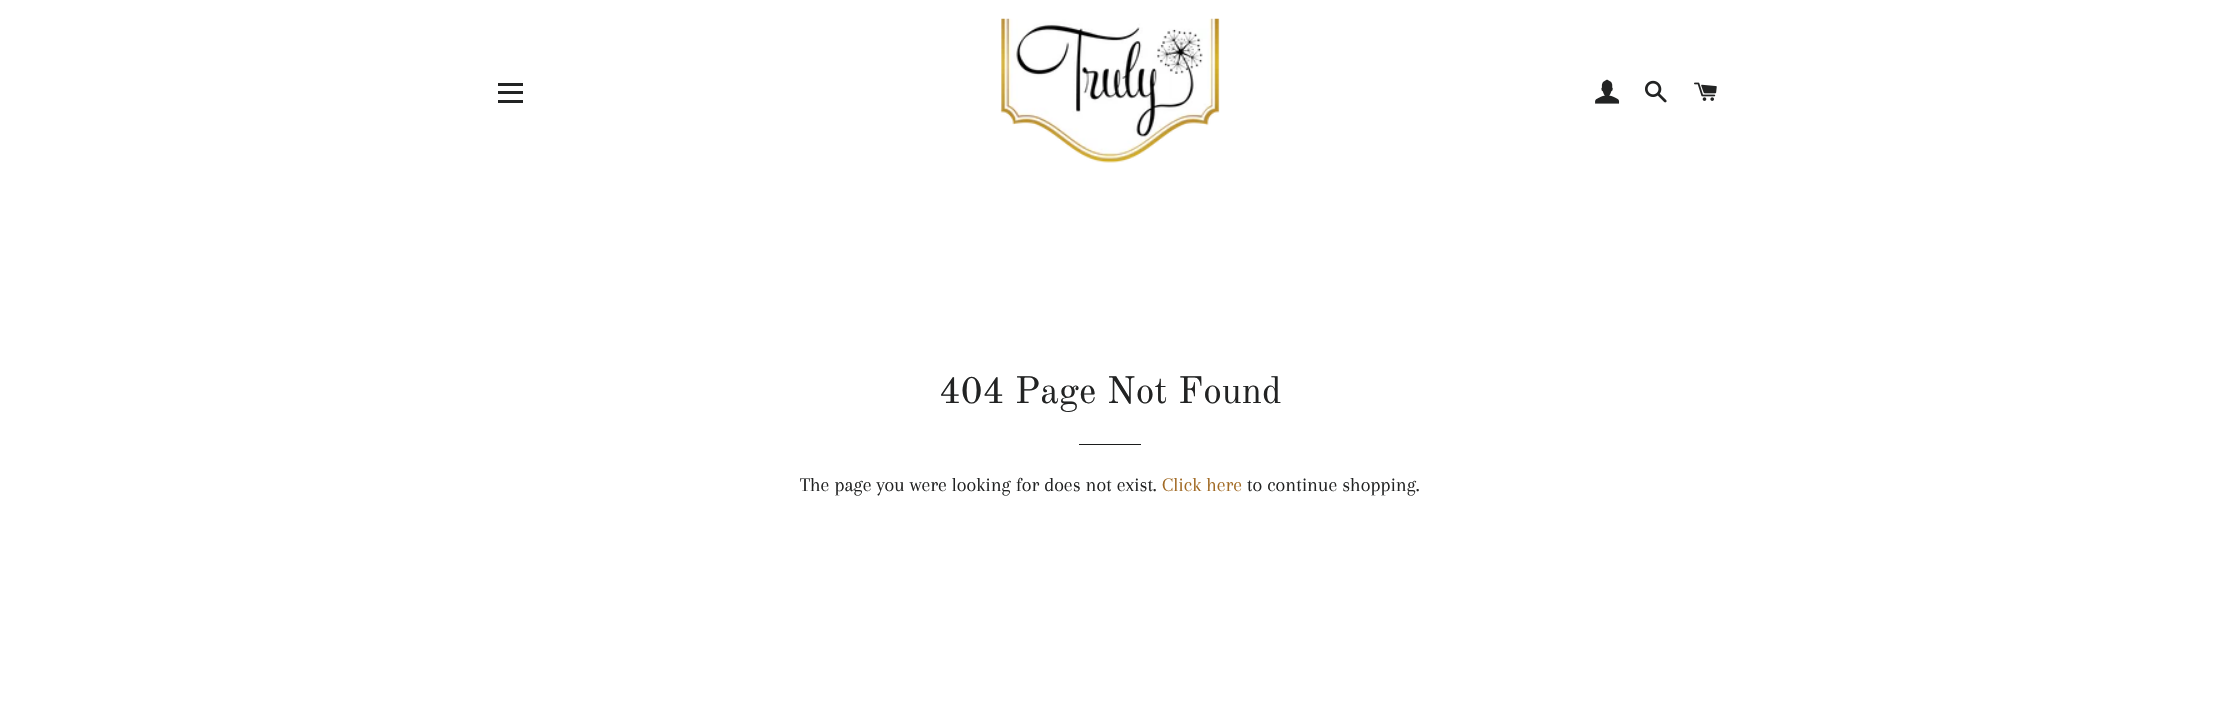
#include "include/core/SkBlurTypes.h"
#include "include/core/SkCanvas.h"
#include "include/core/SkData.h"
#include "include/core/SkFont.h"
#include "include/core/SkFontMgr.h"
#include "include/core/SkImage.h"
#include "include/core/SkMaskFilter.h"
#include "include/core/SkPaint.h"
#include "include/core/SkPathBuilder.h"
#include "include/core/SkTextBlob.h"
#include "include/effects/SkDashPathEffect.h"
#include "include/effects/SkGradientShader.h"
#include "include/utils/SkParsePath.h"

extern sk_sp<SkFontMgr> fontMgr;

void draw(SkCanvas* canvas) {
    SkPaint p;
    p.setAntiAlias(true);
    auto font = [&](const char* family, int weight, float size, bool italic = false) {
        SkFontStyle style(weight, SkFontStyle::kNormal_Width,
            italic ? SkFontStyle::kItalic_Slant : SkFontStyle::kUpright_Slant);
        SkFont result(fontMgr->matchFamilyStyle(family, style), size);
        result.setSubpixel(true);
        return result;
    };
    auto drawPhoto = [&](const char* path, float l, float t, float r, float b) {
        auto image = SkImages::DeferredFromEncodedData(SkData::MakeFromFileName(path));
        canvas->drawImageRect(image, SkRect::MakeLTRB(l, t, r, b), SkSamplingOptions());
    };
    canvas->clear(0xFFFFFFFF);
    {
        const struct { float l, t, r, b; SkColor color; } items[] = {
            {498, 83, 523, 86, 0xFF222323},
            {498, 91, 523, 94, 0xFF222323},
            {498, 100, 523, 103, 0xFF222323},
        };
        for (auto [l, t, r, b, color] : items) {
            p.setColor(color);
            canvas->drawRect(SkRect::MakeLTRB(l, t, r, b), p);
        }
    }
    drawPhoto("media/1.png", 1000, 18, 1220, 163);
    drawPhoto("media/2.png", 1595, 79, 1620, 104);
    drawPhoto("media/3.png", 1645, 80, 1667, 103);
    drawPhoto("media/4.png", 1694, 82, 1717, 101);
    auto font1 = font("Old Standard TT", 400, 37.5f);
    canvas->drawString("404 Page Not Found", 939, 403, font1, p);
    p.setColor(0xFF1C1D1D);
    canvas->drawRect(SkRect::MakeLTRB(1079, 444, 1141, 445), p);
    auto font2 = font("Arapey", 400, 20);
    p.setColor(0xFF222323);
    canvas->drawString("The page you were looking for does not exist.", 800, 491, font2, p);
    p.setColor(0xFFA26B25);
    canvas->drawString("Click here", 1162, 491, font2, p);
    p.setColor(0xFF222323);
    canvas->drawString("to continue shopping.", 1247, 491, font2, p);
}
